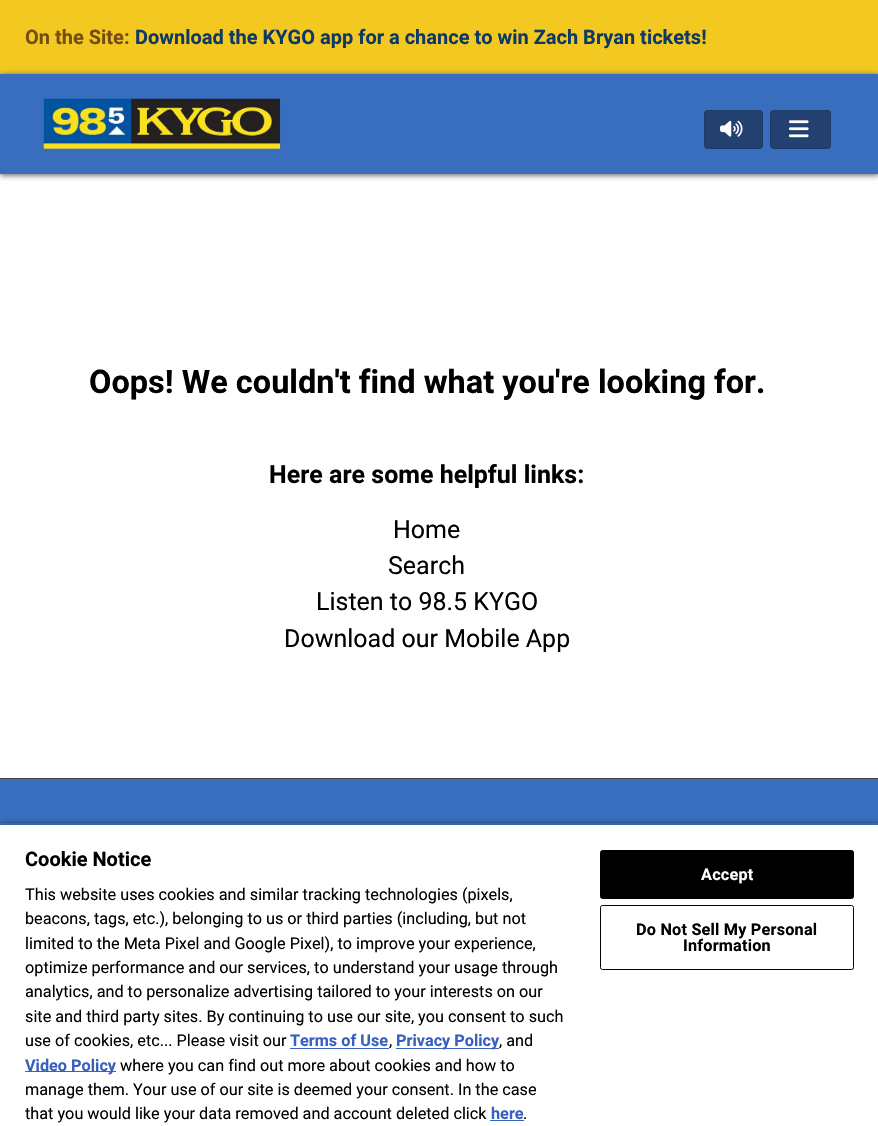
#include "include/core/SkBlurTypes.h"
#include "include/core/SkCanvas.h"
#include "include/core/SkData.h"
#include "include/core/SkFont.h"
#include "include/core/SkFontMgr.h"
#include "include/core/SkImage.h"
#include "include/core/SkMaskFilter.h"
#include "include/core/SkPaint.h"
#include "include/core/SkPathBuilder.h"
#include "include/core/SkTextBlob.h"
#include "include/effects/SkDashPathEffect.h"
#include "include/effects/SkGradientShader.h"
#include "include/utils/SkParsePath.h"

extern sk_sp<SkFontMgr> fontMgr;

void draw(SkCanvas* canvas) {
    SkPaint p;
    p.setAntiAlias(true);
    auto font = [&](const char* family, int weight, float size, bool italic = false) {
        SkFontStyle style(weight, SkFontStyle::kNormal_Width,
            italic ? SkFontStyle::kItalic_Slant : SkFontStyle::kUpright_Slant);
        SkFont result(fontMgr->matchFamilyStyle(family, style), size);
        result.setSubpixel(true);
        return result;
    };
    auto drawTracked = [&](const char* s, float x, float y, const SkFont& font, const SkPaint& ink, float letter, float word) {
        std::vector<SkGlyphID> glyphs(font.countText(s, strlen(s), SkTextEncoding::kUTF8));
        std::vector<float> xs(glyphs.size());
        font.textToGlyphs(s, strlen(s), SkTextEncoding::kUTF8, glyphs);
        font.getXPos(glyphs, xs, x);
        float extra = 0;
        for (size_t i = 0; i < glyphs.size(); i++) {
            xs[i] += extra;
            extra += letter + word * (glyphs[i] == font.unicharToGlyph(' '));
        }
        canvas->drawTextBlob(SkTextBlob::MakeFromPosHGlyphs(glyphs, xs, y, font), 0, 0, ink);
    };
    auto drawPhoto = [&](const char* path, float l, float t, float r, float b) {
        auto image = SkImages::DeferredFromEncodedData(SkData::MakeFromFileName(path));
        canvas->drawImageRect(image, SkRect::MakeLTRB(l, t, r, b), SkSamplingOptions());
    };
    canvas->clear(0xFFFFFFFF);
    p.setColor(0xFFF3C921);
    canvas->drawRect(SkRect::MakeLTRB(0, 0, 878, 74), p);
    auto font1 = font("Roboto", 700, 20);
    p.setColor(0xFF734D11);
    canvas->drawString("On the Site:", 25, 44, font1, p);
    p.setColor(0xFF0E3866);
    canvas->drawString("Download the KYGO app for a chance to win Zach Bryan tickets!", 135, 44, font1, p);
    p.setColor(0xFF555555);
    p.setMaskFilter(SkMaskFilter::MakeBlur(kNormal_SkBlurStyle, 3));
    canvas->drawRect(SkRect::MakeLTRB(0, 75, 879, 175), p);
    p.setMaskFilter(nullptr);
    p.setColor(0xFF396DBD);
    canvas->drawRect(SkRect::MakeLTRB(0, 74, 878, 174), p);
    drawPhoto("media/1.png", 43, 98, 281, 149);
    p.setColor(0xFF224171);
    canvas->drawRoundRect(SkRect::MakeLTRB(704, 110, 763, 149), 4, 4, p);
    p.setStyle(SkPaint::kStroke_Style);
    p.setStrokeWidth(1);
    p.setColor(0x1A000000);
    canvas->drawRoundRect(SkRect::MakeLTRB(704.5f, 110.5f, 762.5f, 148.5f), 3.5f, 3.5f, p);
    drawPhoto("media/2.png", 720, 120, 743, 137);
    p.setStyle(SkPaint::kFill_Style);
    p.setColor(0xFF224171);
    canvas->drawRoundRect(SkRect::MakeLTRB(770, 110, 831, 149), 4, 4, p);
    p.setStyle(SkPaint::kStroke_Style);
    p.setColor(0x1A000000);
    canvas->drawRoundRect(SkRect::MakeLTRB(770.5f, 110.5f, 830.5f, 148.5f), 3.5f, 3.5f, p);
    drawPhoto("media/3.png", 788, 120, 809, 138);
    auto font2 = font("Roboto", 700, 32.5f);
    p.setStyle(SkPaint::kFill_Style);
    p.setColor(0xFF000000);
    canvas->drawString("Oops! We couldn't find what you're looking for.", 89, 393, font2, p);
    auto font3 = font("Roboto", 700, 25);
    canvas->drawString("Here are some helpful links:", 269, 483, font3, p);
    auto font4 = font("Roboto", 400, 25);
    {
        const struct { const char* s; float x, y; } items[] = {
            {"Home", 393, 538},
            {"Search", 388, 574},
            {"Listen to 98.5 KYGO", 316, 610},
            {"Download our Mobile App", 284, 647},
        };
        for (auto [s, x, y] : items) {
            canvas->drawString(s, x, y, font4, p);
        }
    }
    p.setColor(0xFF396DBD);
    canvas->drawRect(SkRect::MakeLTRB(0, 779, 878, 825), p);
    p.setColor(0xFF444444);
    canvas->drawRect(SkRect::MakeLTRB(0, 778, 878, 779), p);
    canvas->save();
    canvas->clipRect(SkRect::MakeLTRB(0, 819, 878, 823));
    p.setColor(0x59000000);
    p.setMaskFilter(SkMaskFilter::MakeBlur(kNormal_SkBlurStyle, 2.5f));
    canvas->drawRect(SkRect::MakeLTRB(0, 823, 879, 1126), p);
    p.setMaskFilter(nullptr);
    canvas->restore();
    p.setColor(0x33000000);
    p.setMaskFilter(SkMaskFilter::MakeBlur(kNormal_SkBlurStyle, 2.5f));
    canvas->drawRect(SkRect::MakeLTRB(0, 825, 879, 1126), p);
    p.setMaskFilter(nullptr);
    p.setColor(0xFFFFFFFF);
    canvas->drawRect(SkRect::MakeLTRB(0, 825, 878, 1126), p);
    p.setColor(0xFF000000);
    canvas->drawString("Cookie Notice", 25, 866, font1, p);
    auto font5 = font("Roboto", 400, 16.25f);
    {
        const struct { const char* s; float x, y; } items[] = {
            {"This website uses cookies and similar tracking technologies (pixels,", 25, 900},
            {"beacons, tags, etc.), belonging to us or third parties (including, but not", 25, 924},
            {"limited to the Meta Pixel and Google Pixel), to improve your experience,", 25, 949},
            {"optimize performance and our services, to understand your usage through", 25, 973},
            {"analytics, and to personalize advertising tailored to your interests on our", 25, 997},
            {"site and third party sites. By continuing to use our site, you consent to such", 25, 1022},
            {"use of cookies, etc... Please visit our", 25, 1046},
        };
        for (auto [s, x, y] : items) {
            canvas->drawString(s, x, y, font5, p);
        }
    }
    auto font6 = font("Roboto", 700, 16.25f);
    p.setColor(0xFF3860BE);
    canvas->drawString("Terms of Use", 290, 1046, font6, p);
    canvas->drawRect(SkRect::MakeLTRB(290, 1048, 389, 1049), p);
    p.setColor(0xFF000000);
    canvas->drawString(",", 389, 1046, font5, p);
    p.setColor(0xFF3860BE);
    canvas->drawRect(SkRect::MakeLTRB(396, 1048, 499, 1049), p);
    canvas->drawString("Privacy Policy", 396, 1046, font6, p);
    p.setColor(0xFF000000);
    canvas->drawString(", and", 499, 1046, font5, p);
    p.setColor(0xFF3860BE);
    canvas->drawRect(SkRect::MakeLTRB(25, 1071, 116, 1072), p);
    canvas->drawString("Video Policy", 25, 1071, font6, p);
    p.setColor(0xFF000000);
    {
        const struct { const char* s; float x, y; } items[] = {
            {"where you can find out more about cookies and how to", 120, 1071},
            {"manage them. Your use of our site is deemed your consent. In the case", 25, 1095},
            {"that you would like your data removed and account deleted click", 25, 1119},
        };
        for (auto [s, x, y] : items) {
            canvas->drawString(s, x, y, font5, p);
        }
    }
    p.setColor(0xFF3860BE);
    canvas->drawString("here", 491, 1119, font6, p);
    canvas->drawRect(SkRect::MakeLTRB(490, 1120, 524, 1121), p);
    p.setColor(0xFF000000);
    canvas->drawString(".", 523, 1119, font5, p);
    canvas->drawRoundRect(SkRect::MakeLTRB(600.5f, 850.5f, 853.5f, 898.5f), 2, 2, p);
    p.setStyle(SkPaint::kStroke_Style);
    canvas->drawRoundRect(SkRect::MakeLTRB(600.5f, 850.5f, 853.5f, 898.5f), 2, 2, p);
    p.setStyle(SkPaint::kFill_Style);
    p.setColor(0xFFFFFFFF);
    drawTracked("Accept", 701, 880, font6, p, 0.2f, 0);
    p.setStyle(SkPaint::kStroke_Style);
    p.setColor(0xFF050505);
    canvas->drawRoundRect(SkRect::MakeLTRB(600.5f, 905.5f, 853.5f, 969.5f), 2, 2, p);
    p.setStyle(SkPaint::kFill_Style);
    p.setColor(0xFF000000);
    drawTracked("Do Not Sell My Personal", 636, 935, font6, p, 0.2f, 0);
    drawTracked("Information", 683, 951, font6, p, 0.2f, 0);
}
